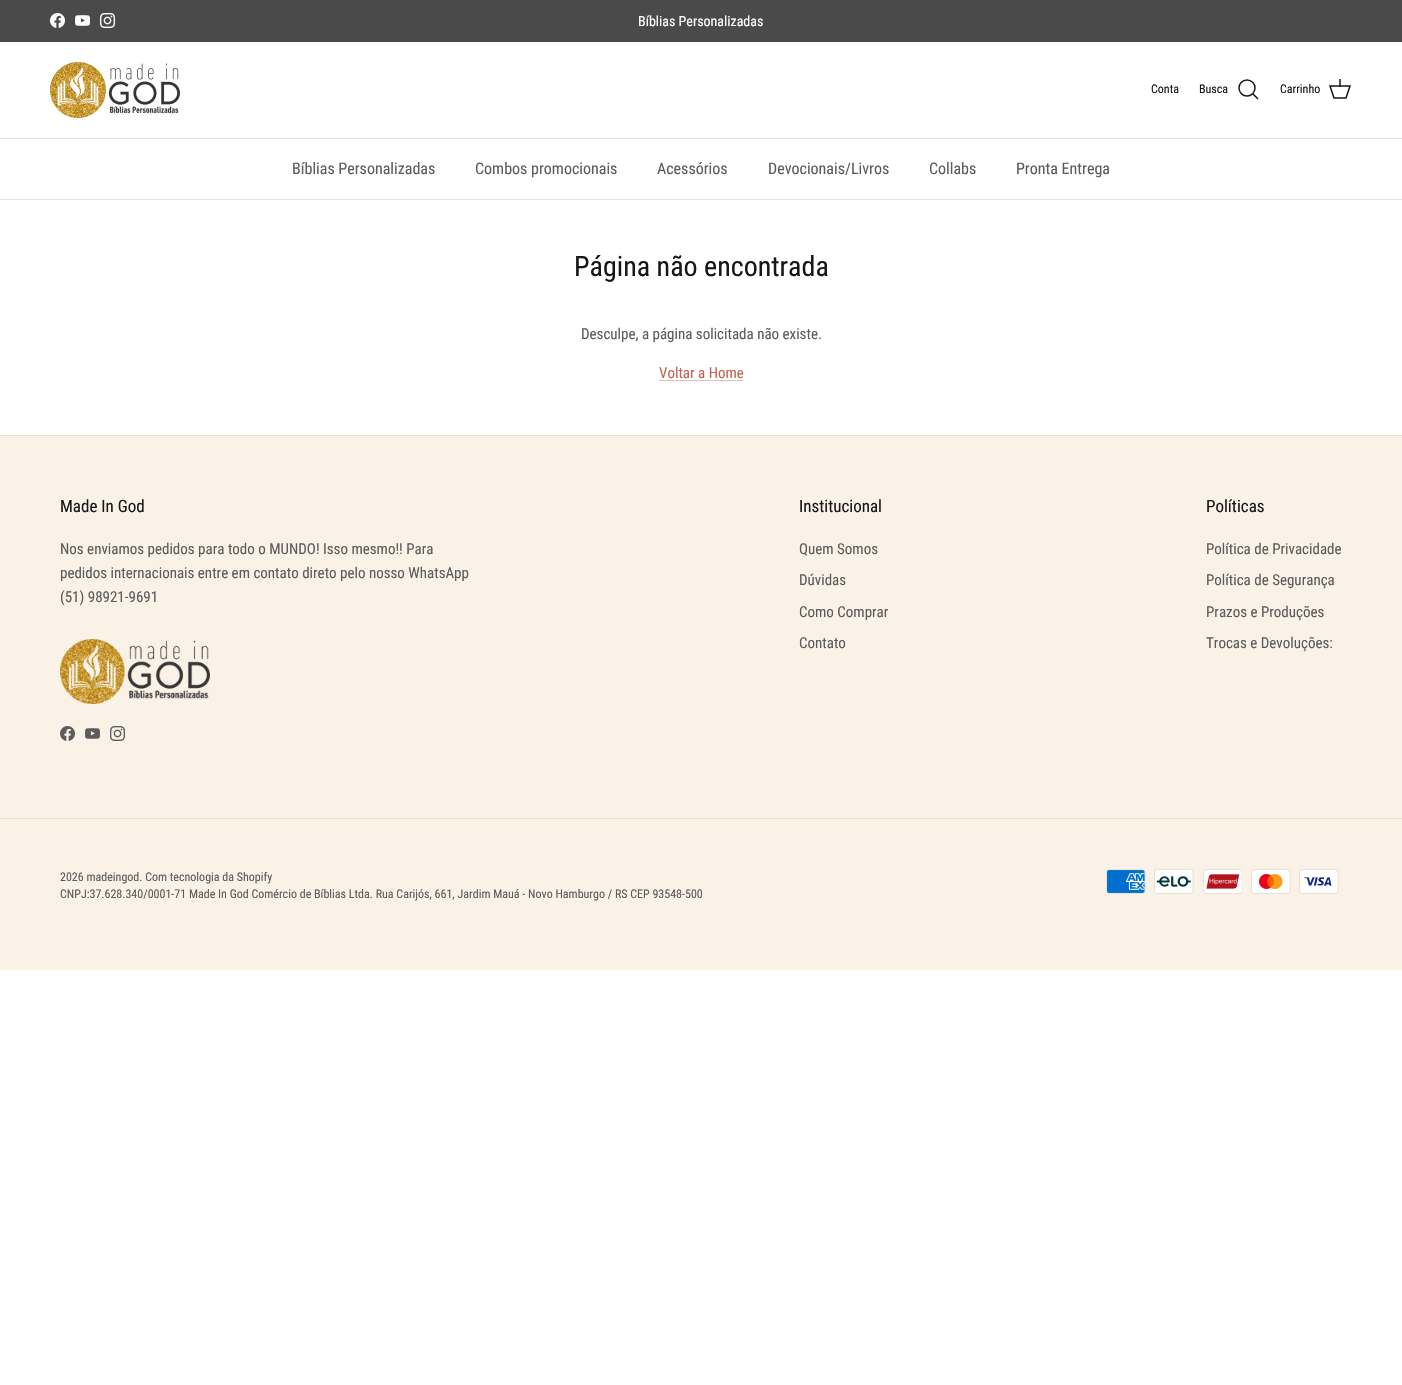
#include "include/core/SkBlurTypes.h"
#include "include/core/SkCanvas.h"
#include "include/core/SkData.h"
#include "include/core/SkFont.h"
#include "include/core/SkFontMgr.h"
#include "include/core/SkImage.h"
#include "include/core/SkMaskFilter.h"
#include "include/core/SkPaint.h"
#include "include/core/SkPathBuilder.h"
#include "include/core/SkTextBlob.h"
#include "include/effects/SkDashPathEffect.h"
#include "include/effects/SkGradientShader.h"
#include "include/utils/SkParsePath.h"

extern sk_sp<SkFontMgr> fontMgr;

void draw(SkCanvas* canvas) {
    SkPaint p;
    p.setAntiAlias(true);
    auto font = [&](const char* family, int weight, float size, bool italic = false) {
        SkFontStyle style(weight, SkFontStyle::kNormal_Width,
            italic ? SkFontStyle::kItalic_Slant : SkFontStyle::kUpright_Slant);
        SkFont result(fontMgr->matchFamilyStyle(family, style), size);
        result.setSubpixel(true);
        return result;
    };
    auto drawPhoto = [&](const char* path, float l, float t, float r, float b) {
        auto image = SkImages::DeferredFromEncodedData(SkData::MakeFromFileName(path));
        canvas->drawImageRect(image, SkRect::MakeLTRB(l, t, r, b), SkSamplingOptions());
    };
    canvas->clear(0xFFFFFFFF);
    p.setColor(0xFF4A4A4A);
    canvas->drawRect(SkRect::MakeLTRB(0, 0, 1402, 42), p);
    drawPhoto("media/1.png", 50, 13, 65, 28);
    drawPhoto("media/2.png", 75, 15, 90, 26);
    drawPhoto("media/3.png", 100, 13, 115, 28);
    auto font1 = font("Roboto Condensed", 400, 14);
    p.setColor(0xFFFFFFFF);
    canvas->drawString("Bíblias Personalizadas", 638, 26, font1, p);
    p.setColor(0xFFDFE3E8);
    canvas->drawRect(SkRect::MakeLTRB(0, 138, 1402, 139), p);
    drawPhoto("media/4.png", 50, 62, 180, 118);
    auto font2 = font("Roboto Condensed", 400, 12);
    p.setColor(0xFF171717);
    canvas->drawString("Conta", 1151, 93, font2, p);
    canvas->drawString("Busca", 1199, 93, font2, p);
    p.setStyle(SkPaint::kStroke_Style);
    p.setStrokeWidth(1.5f);
    canvas->drawCircle(1247, 88, 8, p);
    p.setStrokeCap(SkPaint::kSquare_Cap);
    canvas->drawPath(SkPathBuilder().moveTo(1253, 94).lineTo(1257.5f, 98.5f).detach(), p);
    p.setStyle(SkPaint::kFill_Style);
    canvas->drawString("Carrinho", 1280, 93, font2, p);
    p.setStyle(SkPaint::kStroke_Style);
    p.setStrokeCap(SkPaint::kButt_Cap);
    canvas->drawPath(SkPathBuilder().moveTo(1330, 86).lineTo(1350, 86).lineTo(1346, 98).lineTo(1334, 98).close().detach(), p);
    p.setStyle(SkPaint::kFill_Style);
    p.setColor(0xBF171717);
    canvas->drawRect(SkRect::MakeLTRB(1339, 79, 1341, 87), p);
    p.setColor(0xFFDFE3E8);
    canvas->drawRect(SkRect::MakeLTRB(0, 199, 1402, 200), p);
    auto font3 = font("Roboto Condensed", 400, 16);
    p.setColor(0xFF5C5C5C);
    {
        const struct { const char* s; float x, y; } items[] = {
            {"Bíblias Personalizadas", 292, 174},
            {"Combos promocionais", 475, 174},
            {"Acessórios", 657, 174},
            {"Devocionais/Livros", 768, 174},
            {"Collabs", 929, 174},
            {"Pronta Entrega", 1016, 174},
        };
        for (auto [s, x, y] : items) {
            canvas->drawString(s, x, y, font3, p);
        }
    }
    auto font4 = font("Roboto Condensed", 400, 28);
    p.setColor(0xFF171717);
    canvas->drawString("Página não encontrada", 574, 276, font4, p);
    auto font5 = font("Roboto Condensed", 400, 15);
    p.setColor(0xFF5C5C5C);
    canvas->drawString("Desculpe, a página solicitada não existe.", 581, 339, font5, p);
    p.setColor(0xFFC16452);
    canvas->drawString("Voltar a Home", 659, 378, font5, p);
    {
        const struct { float l, t, r, b; SkColor color; } items[] = {
            {659, 380, 743, 381, 0xFFE6C1BA},
            {0, 436, 1402, 970, 0xFFFAF2E6},
            {0, 435, 1402, 436, 0xFFEFDFC7},
        };
        for (auto [l, t, r, b, color] : items) {
            p.setColor(color);
            canvas->drawRect(SkRect::MakeLTRB(l, t, r, b), p);
        }
    }
    auto font6 = font("Roboto Condensed", 400, 17);
    p.setColor(0xFF171717);
    canvas->drawString("Made In God", 60, 512, font6, p);
    p.setColor(0xFF5C5C5C);
    {
        const struct { const char* s; float x, y; } items[] = {
            {"Nos enviamos pedidos para todo o MUNDO! Isso mesmo!! Para", 60, 554},
            {"pedidos internacionais entre em contato direto pelo nosso WhatsApp", 60, 578},
            {"(51) 98921-9691", 60, 602},
        };
        for (auto [s, x, y] : items) {
            canvas->drawString(s, x, y, font5, p);
        }
    }
    drawPhoto("media/5.png", 60, 639, 210, 704);
    drawPhoto("media/6.png", 60, 726, 75, 741);
    drawPhoto("media/7.png", 85, 728, 100, 739);
    drawPhoto("media/8.png", 110, 726, 125, 741);
    p.setColor(0xFF171717);
    canvas->drawString("Institucional", 799, 512, font6, p);
    p.setColor(0xFF5C5C5C);
    {
        const struct { const char* s; float x, y; } items[] = {
            {"Quem Somos", 799, 554},
            {"Dúvidas", 799, 585},
            {"Como Comprar", 799, 617},
            {"Contato", 799, 648},
        };
        for (auto [s, x, y] : items) {
            canvas->drawString(s, x, y, font5, p);
        }
    }
    p.setColor(0xFF171717);
    canvas->drawString("Políticas", 1206, 512, font6, p);
    p.setColor(0xFF5C5C5C);
    {
        const struct { const char* s; float x, y; } items[] = {
            {"Política de Privacidade", 1206, 554},
            {"Política de Segurança", 1206, 585},
            {"Prazos e Produções", 1206, 617},
            {"Trocas e Devoluções:", 1206, 648},
        };
        for (auto [s, x, y] : items) {
            canvas->drawString(s, x, y, font5, p);
        }
    }
    p.setColor(0xFFEFDFC7);
    canvas->drawRect(SkRect::MakeLTRB(0, 818, 1402, 819), p);
    p.setColor(0xFF5C5C5C);
    canvas->drawString("2026 madeingod. Com tecnologia da Shopify", 60, 881, font2, p);
    canvas->drawString("CNPJ:37.628.340/0001-71 Made In God Comércio de Bíblias Ltda. Rua Carijós, 661, Jardim Mauá - Novo Hamburgo / RS CEP 93548-500", 60, 898, font2, p);
    drawPhoto("media/9.png", 1106, 869, 1146, 894);
    drawPhoto("media/10.png", 1154, 869, 1194, 894);
    drawPhoto("media/11.png", 1203, 869, 1242, 894);
    drawPhoto("media/12.png", 1251, 869, 1291, 894);
    drawPhoto("media/13.png", 1299, 869, 1339, 894);
}
